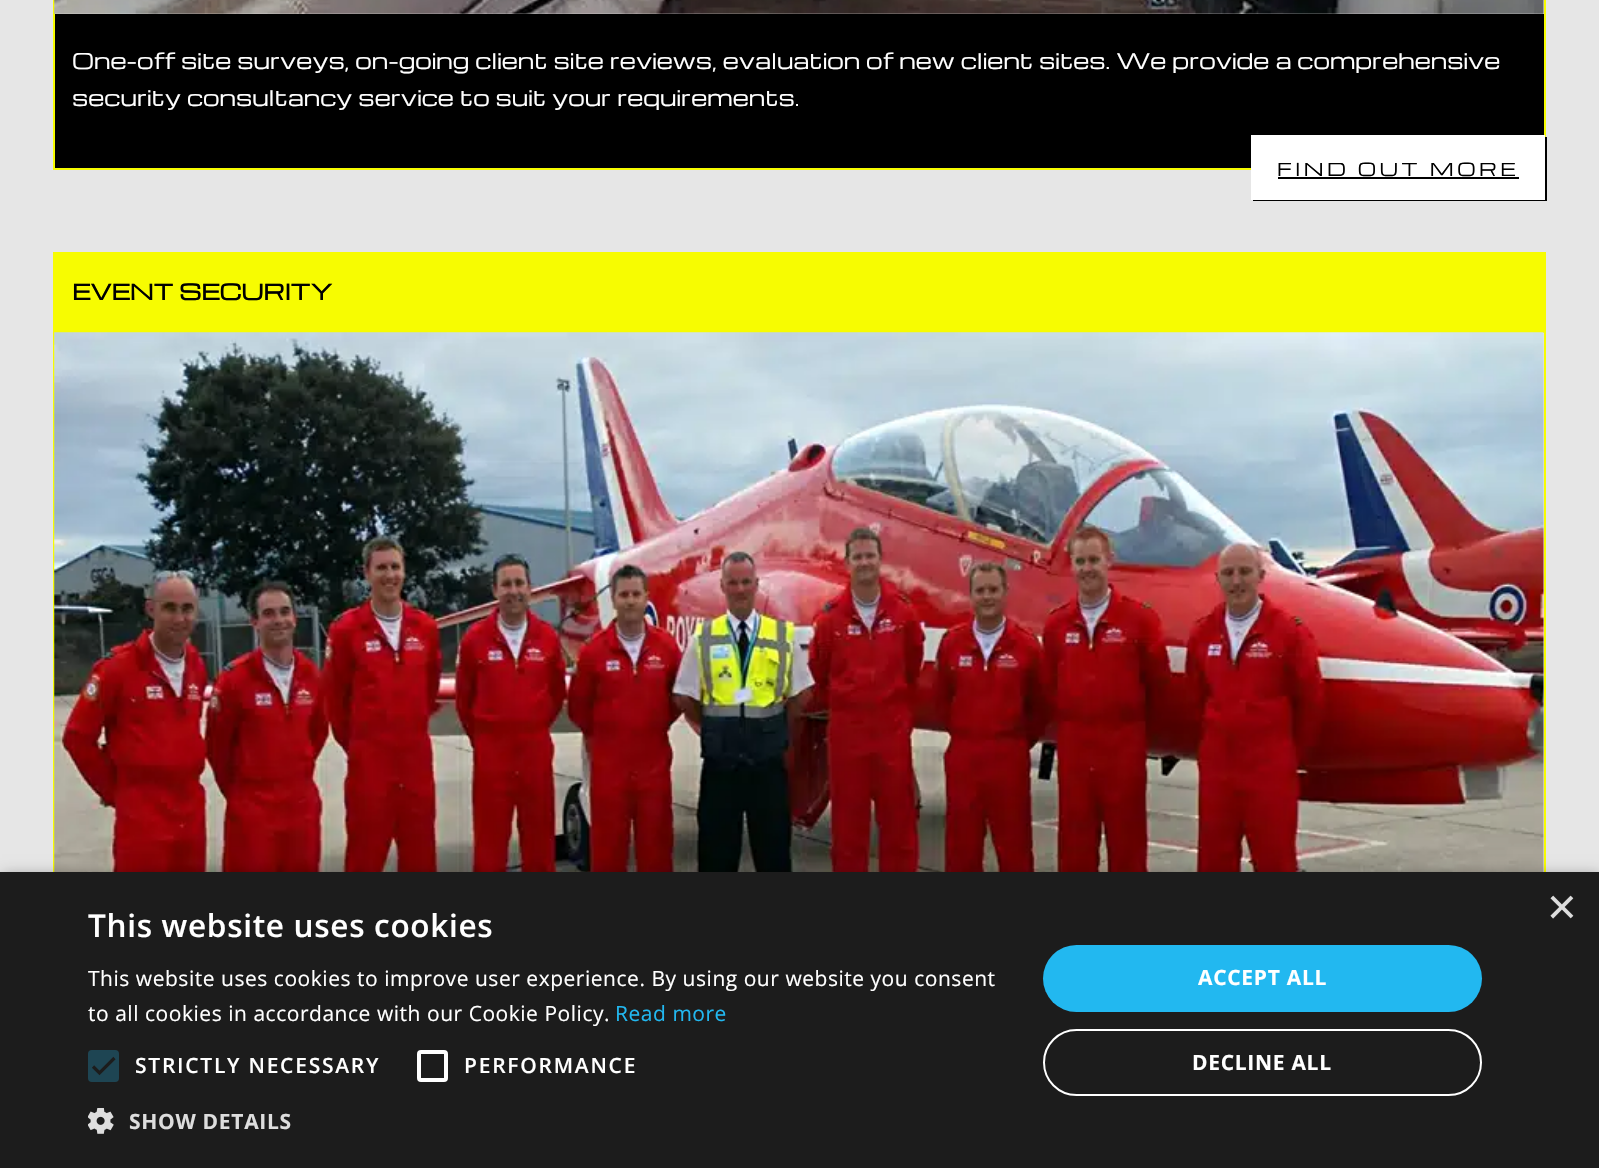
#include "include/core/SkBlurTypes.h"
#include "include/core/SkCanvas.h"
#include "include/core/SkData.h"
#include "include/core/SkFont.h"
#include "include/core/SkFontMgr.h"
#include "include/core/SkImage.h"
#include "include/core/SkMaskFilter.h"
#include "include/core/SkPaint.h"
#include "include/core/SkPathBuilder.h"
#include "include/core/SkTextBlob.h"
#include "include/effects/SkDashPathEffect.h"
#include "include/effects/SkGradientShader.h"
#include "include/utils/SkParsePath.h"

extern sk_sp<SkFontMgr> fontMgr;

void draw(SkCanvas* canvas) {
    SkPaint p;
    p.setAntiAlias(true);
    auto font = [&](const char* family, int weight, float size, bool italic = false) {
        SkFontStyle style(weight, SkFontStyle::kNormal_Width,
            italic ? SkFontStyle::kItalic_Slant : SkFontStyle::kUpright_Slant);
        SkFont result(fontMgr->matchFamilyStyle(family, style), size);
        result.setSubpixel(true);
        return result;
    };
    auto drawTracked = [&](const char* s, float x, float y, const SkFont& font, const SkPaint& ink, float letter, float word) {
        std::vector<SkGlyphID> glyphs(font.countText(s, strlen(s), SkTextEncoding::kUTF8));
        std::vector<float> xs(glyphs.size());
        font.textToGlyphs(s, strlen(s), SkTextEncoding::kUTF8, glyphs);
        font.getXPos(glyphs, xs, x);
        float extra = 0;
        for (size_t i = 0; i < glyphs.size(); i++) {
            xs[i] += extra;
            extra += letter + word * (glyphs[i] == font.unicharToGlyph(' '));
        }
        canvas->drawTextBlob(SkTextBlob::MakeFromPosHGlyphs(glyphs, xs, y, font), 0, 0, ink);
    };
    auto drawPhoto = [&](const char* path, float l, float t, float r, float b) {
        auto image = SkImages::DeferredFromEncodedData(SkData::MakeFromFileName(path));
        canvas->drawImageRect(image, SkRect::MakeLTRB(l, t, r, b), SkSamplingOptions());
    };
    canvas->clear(0xFFE6E6E6);
    p.setColor(0xFFF7FC01);
    canvas->drawRect(SkRect::MakeLTRB(1544, 0, 1546, 137), p);
    canvas->drawRect(SkRect::MakeLTRB(53, 0, 55, 14), p);
    drawPhoto("media/1.png", 54, 0, 1544, 14);
    {
        const struct { float l, t, r, b; SkColor color; } items[] = {
            {55, 14, 1544, 168, 0xFF000000},
            {53, 168, 1251, 170, 0xFFF7FC01},
            {53, 14, 55, 170, 0xFFF7FC01},
        };
        for (auto [l, t, r, b, color] : items) {
            p.setColor(color);
            canvas->drawRect(SkRect::MakeLTRB(l, t, r, b), p);
        }
    }
    auto font1 = font("Michroma", 400, 21);
    p.setColor(0xFFFFFFFF);
    canvas->drawString("One-off site surveys, on-going client site reviews, evaluation of new client sites. We provide a comprehensive", 72, 69, font1, p);
    canvas->drawString("security consultancy service to suit your requirements.", 72, 106, font1, p);
    p.setColor(0xFF000000);
    canvas->drawPath(SkPathBuilder().moveTo(1253, 200).lineTo(1253, 201).lineTo(1547, 201).lineTo(1547, 137).lineTo(1545, 137).lineTo(1545, 200).close().detach(), p);
    p.setColor(0xFFFFFFFF);
    canvas->drawRect(SkRect::MakeLTRB(1251, 135, 1545, 200), p);
    auto font2 = font("Michroma", 400, 17.5f);
    p.setColor(0xFF000000);
    drawTracked("FIND OUT MORE", 1277, 176, font2, p, 3.5f, 0);
    canvas->drawRect(SkRect::MakeLTRB(1278, 177, 1519, 179), p);
    p.setColor(0xFFF7FC01);
    canvas->drawRect(SkRect::MakeLTRB(53, 252, 1546, 331), p);
    auto font3 = font("Michroma", 700, 21);
    p.setColor(0xFF000000);
    canvas->drawString("EVENT SECURITY", 72, 300, font3, p);
    {
        const struct { float l, t, r, b; SkColor color; } items[] = {
            {53, 331, 1545, 333, 0xFFF7FC01},
            {1544, 331, 1546, 872, 0xFFF7FC01},
            {53, 331, 55, 872, 0xFFF7FC01},
        };
        for (auto [l, t, r, b, color] : items) {
            p.setColor(color);
            canvas->drawRect(SkRect::MakeLTRB(l, t, r, b), p);
        }
    }
    drawPhoto("media/2.png", 54, 332, 1544, 872);
    p.setColor(0x59000000);
    p.setMaskFilter(SkMaskFilter::MakeBlur(kNormal_SkBlurStyle, 7));
    canvas->drawRect(SkRect::MakeLTRB(2, 875, 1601, 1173), p);
    p.setMaskFilter(nullptr);
    p.setColor(0xFF1C1C1C);
    canvas->drawRect(SkRect::MakeLTRB(0, 872, 1599, 1168), p);
    auto font4 = font("Liberation Sans", 400, 51);
    p.setColor(0xFFDDDDDD);
    canvas->drawString("×", 1547, 924, font4, p);
    auto font5 = font("Open Sans", 600, 31.5f);
    p.setColor(0xFFFFFFFF);
    drawTracked("This website uses cookies", 88, 937, font5, p, 0.7f, 0);
    auto font6 = font("Open Sans", 400, 21);
    drawTracked("This website uses cookies to improve user experience. By using our website you consent", 88, 986, font6, p, 0.53f, 0);
    drawTracked("to all cookies in accordance with our Cookie Policy.", 88, 1021, font6, p, 0.53f, 0);
    p.setColor(0xFF22B8F0);
    drawTracked("Read more", 615, 1021, font6, p, 0.53f, 0);
    p.setColor(0xFF1E4553);
    canvas->drawRoundRect(SkRect::MakeLTRB(88, 1050, 119, 1082), 4, 4, p);
    p.setStyle(SkPaint::kStroke_Style);
    p.setStrokeWidth(3.2f);
    p.setColor(0xFF1C1C1C);
    canvas->drawPath(SkPathBuilder().moveTo(93, 1066.5f).lineTo(99.5f, 1073).lineTo(114.5f, 1058).detach(), p);
    auto font7 = font("Open Sans", 600, 21);
    p.setStyle(SkPaint::kFill_Style);
    p.setColor(0xFFFFFFFF);
    drawTracked("STRICTLY NECESSARY", 135, 1073, font7, p, 1.75f, 0);
    p.setStyle(SkPaint::kStroke_Style);
    p.setStrokeWidth(4);
    canvas->drawRoundRect(SkRect::MakeLTRB(419, 1052, 446, 1080), 2, 2, p);
    p.setStyle(SkPaint::kFill_Style);
    drawTracked("PERFORMANCE", 464, 1073, font7, p, 1.75f, 0);
    drawPhoto("media/3.png", 88, 1108, 114, 1134);
    auto font8 = font("Open Sans", 700, 21);
    p.setColor(0xFFDDDDDD);
    drawTracked("SHOW DETAILS", 129, 1129, font8, p, 0.7f, 0);
    p.setColor(0xFF22B8F0);
    canvas->drawRoundRect(SkRect::MakeLTRB(1043, 945, 1482, 1012), 33.5f, 33.5f, p);
    p.setColor(0xFFFFFFFF);
    drawTracked("ACCEPT ALL", 1198, 985, font8, p, 0.7f, 0);
    p.setStyle(SkPaint::kStroke_Style);
    p.setStrokeWidth(2);
    canvas->drawRoundRect(SkRect::MakeLTRB(1044, 1030, 1481, 1095), 32.5f, 32.5f, p);
    p.setStyle(SkPaint::kFill_Style);
    drawTracked("DECLINE ALL", 1192, 1070, font8, p, 0.7f, 0);
}
